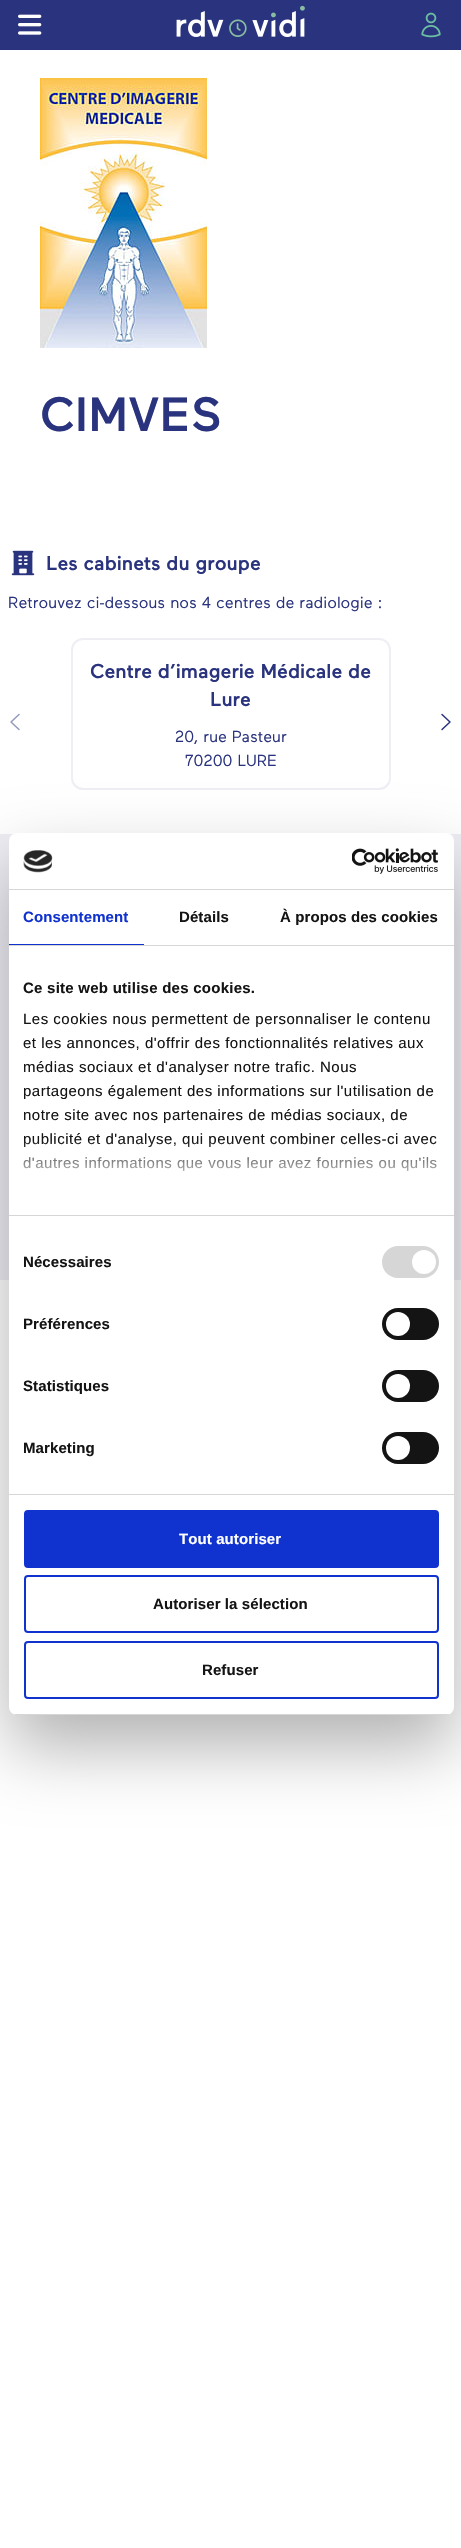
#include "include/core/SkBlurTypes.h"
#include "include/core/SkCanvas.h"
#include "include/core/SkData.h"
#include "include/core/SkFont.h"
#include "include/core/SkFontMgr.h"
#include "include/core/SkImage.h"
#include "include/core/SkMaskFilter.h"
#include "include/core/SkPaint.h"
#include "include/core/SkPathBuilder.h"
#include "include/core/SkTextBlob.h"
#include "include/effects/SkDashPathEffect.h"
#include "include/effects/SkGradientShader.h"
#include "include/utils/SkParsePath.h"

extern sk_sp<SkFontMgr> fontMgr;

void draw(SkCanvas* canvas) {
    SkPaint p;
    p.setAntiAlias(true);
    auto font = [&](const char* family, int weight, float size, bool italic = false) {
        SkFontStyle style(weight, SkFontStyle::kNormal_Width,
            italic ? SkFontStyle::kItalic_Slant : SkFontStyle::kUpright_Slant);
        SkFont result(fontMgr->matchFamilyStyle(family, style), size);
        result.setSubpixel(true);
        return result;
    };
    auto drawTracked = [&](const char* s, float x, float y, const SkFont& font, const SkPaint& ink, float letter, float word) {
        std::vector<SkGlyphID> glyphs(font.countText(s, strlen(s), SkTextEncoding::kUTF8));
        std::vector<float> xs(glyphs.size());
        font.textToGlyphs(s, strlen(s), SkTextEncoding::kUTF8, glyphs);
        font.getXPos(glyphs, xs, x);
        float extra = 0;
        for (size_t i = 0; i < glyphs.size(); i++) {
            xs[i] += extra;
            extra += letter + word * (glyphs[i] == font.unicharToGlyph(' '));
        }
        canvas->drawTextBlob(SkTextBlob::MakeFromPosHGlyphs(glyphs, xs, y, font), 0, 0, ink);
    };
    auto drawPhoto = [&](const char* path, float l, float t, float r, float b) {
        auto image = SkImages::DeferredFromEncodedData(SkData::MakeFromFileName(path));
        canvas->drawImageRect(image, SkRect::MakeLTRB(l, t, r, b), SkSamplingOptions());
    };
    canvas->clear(0xFFFFFFFF);
    p.setColor(0xFF2A337D);
    canvas->drawRect(SkRect::MakeLTRB(0, 0, 461, 50), p);
    drawPhoto("media/1.png", 18, 14, 42, 35);
    drawPhoto("media/2.png", 176, 5, 305, 37);
    drawPhoto("media/3.png", 421, 12, 441, 38);
    drawPhoto("media/4.png", 40, 78, 207, 348);
    auto font1 = font("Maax", 500, 48);
    canvas->drawString("CIMVES", 40, 431, font1, p);
    drawPhoto("media/5.png", 11, 550, 35, 576);
    auto font2 = font("Maax", 500, 20);
    canvas->drawString("Les cabinets du groupe", 46, 570, font2, p);
    auto font3 = font("Maax", 400, 16);
    canvas->drawString("Retrouvez ci-dessous nos 4 centres de radiologie :", 8, 608, font3, p);
    p.setStyle(SkPaint::kStroke_Style);
    p.setStrokeWidth(1.5f);
    p.setStrokeCap(SkPaint::kRound_Cap);
    p.setStrokeJoin(SkPaint::kRound_Join);
    p.setColor(0xFF9599BE);
    canvas->drawPath(SkPathBuilder().moveTo(19, 729.5f).lineTo(11, 722).lineTo(19, 714.5f).detach(), p);
    p.setStrokeWidth(2);
    p.setStrokeCap(SkPaint::kButt_Cap);
    p.setStrokeJoin(SkPaint::kMiter_Join);
    p.setColor(0xFFEFEEF5);
    canvas->drawRoundRect(SkRect::MakeLTRB(72, 639, 390, 789), 11, 11, p);
    p.setStyle(SkPaint::kFill_Style);
    p.setColor(0xFF2A337D);
    canvas->drawString("Centre d’imagerie Médicale de", 90, 678, font2, p);
    canvas->drawString("Lure", 210, 706, font2, p);
    canvas->drawString("20, rue Pasteur", 175, 742, font3, p);
    canvas->drawString("70200 LURE", 185, 766, font3, p);
    p.setStyle(SkPaint::kStroke_Style);
    p.setStrokeWidth(1.5f);
    p.setStrokeCap(SkPaint::kRound_Cap);
    p.setStrokeJoin(SkPaint::kRound_Join);
    canvas->drawPath(SkPathBuilder().moveTo(442, 714.5f).lineTo(450, 722).lineTo(442, 729.5f).detach(), p);
    p.setStyle(SkPaint::kFill_Style);
    p.setColor(0xFFEFEEF5);
    canvas->drawRect(SkRect::MakeLTRB(0, 834, 461, 1280), p);
    p.setColor(0x4D000000);
    p.setMaskFilter(SkMaskFilter::MakeBlur(kNormal_SkBlurStyle, 34));
    canvas->drawRoundRect(SkRect::MakeLTRB(9, 865, 454, 1747), 8, 8, p);
    p.setMaskFilter(nullptr);
    p.setColor(0xFFFFFFFF);
    canvas->drawRoundRect(SkRect::MakeLTRB(9, 833, 454, 1715), 8, 8, p);
    p.setColor(0xFFD6D6D6);
    canvas->drawRect(SkRect::MakeLTRB(9, 889, 454, 890), p);
    drawPhoto("media/6.png", 23, 850, 53, 873);
    drawPhoto("media/7.png", 352, 848, 438, 874);
    canvas->drawRect(SkRect::MakeLTRB(9, 945, 454, 946), p);
    p.setColor(0xFF1032CF);
    canvas->drawRect(SkRect::MakeLTRB(9, 944, 144, 945), p);
    auto font4 = font("Liberation Sans", 700, 15);
    drawTracked("Consentement", 23, 922, font4, p, 0.1f, 0);
    p.setColor(0xFF141414);
    drawTracked("Détails", 179, 922, font4, p, 0.1f, 0);
    drawTracked("À propos des cookies", 280, 922, font4, p, 0.1f, 0);
    p.setColor(0xFFD6D6D6);
    canvas->drawRect(SkRect::MakeLTRB(9, 1215, 454, 1216), p);
    p.setColor(0xFF141414);
    drawTracked("Ce site web utilise des cookies.", 23, 993, font4, p, 0.25f, 0);
    auto font5 = font("Liberation Sans", 400, 15);
    {
        const struct { const char* s; float x, y; } items[] = {
            {"Les cookies nous permettent de personnaliser le contenu", 23, 1024},
            {"et les annonces, d'offrir des fonctionnalités relatives aux", 23, 1048},
            {"médias sociaux et d'analyser notre trafic. Nous", 23, 1072},
            {"partageons également des informations sur l'utilisation de", 23, 1096},
            {"notre site avec nos partenaires de médias sociaux, de", 23, 1120},
            {"publicité et d'analyse, qui peuvent combiner celles-ci avec", 23, 1144},
            {"d'autres informations que vous leur avez fournies ou qu'ils", 23, 1168},
        };
        for (auto [s, x, y] : items) {
            drawTracked(s, x, y, font5, p, 0.5f, 0);
        }
    }
    {
        const SkColor colors[] = {0xFFFFFFFF, 0xCCFFFFFF, 0x00FFFFFF};
        const float stops[] = {0, 0.5f, 1};
        const SkPoint ends[] = {{225, 1215}, {225, 1140}};
        p.setShader(SkGradientShader::MakeLinear(ends, colors, stops, 3, SkTileMode::kClamp));
        p.setAlpha(255);
    }
    canvas->drawRect(SkRect::MakeLTRB(23, 1141, 437, 1172), p);
    p.setShader(nullptr);
    p.setColor(0xFFD6D6D6);
    canvas->drawRect(SkRect::MakeLTRB(9, 1494, 454, 1495), p);
    p.setColor(0xFF141414);
    drawTracked("Nécessaires", 23, 1267, font4, p, 0.1f, 0);
    p.setColor(0xFFD6D6D6);
    canvas->drawRoundRect(SkRect::MakeLTRB(382, 1246, 439, 1278), 16, 16, p);
    p.setColor(0xFFFFFFFF);
    canvas->drawCircle(424, 1262, 12, p);
    p.setColor(0xFF141414);
    drawTracked("Préférences", 23, 1329, font4, p, 0.1f, 0);
    canvas->drawRoundRect(SkRect::MakeLTRB(382, 1308, 439, 1340), 16, 16, p);
    p.setColor(0xFFFFFFFF);
    canvas->drawCircle(398, 1324, 12, p);
    p.setColor(0xFF141414);
    drawTracked("Statistiques", 23, 1391, font4, p, 0.1f, 0);
    canvas->drawRoundRect(SkRect::MakeLTRB(382, 1370, 439, 1402), 16, 16, p);
    p.setColor(0xFFFFFFFF);
    canvas->drawCircle(398, 1386, 12, p);
    p.setColor(0xFF141414);
    drawTracked("Marketing", 23, 1453, font4, p, 0.1f, 0);
    canvas->drawRoundRect(SkRect::MakeLTRB(382, 1432, 439, 1464), 16, 16, p);
    p.setColor(0xFFFFFFFF);
    canvas->drawCircle(398, 1448, 12, p);
    canvas->save();
    canvas->clipPath(SkPathBuilder().moveTo(17, 833).lineTo(446, 833).cubicTo(450.5f, 833, 454, 836.5f, 454, 841).lineTo(454, 1707).cubicTo(454, 1711.5f, 450.5f, 1715, 446, 1715).lineTo(17, 1715).cubicTo(12.5f, 1715, 9, 1711.5f, 9, 1707).lineTo(9, 841).cubicTo(9, 836.5f, 12.5f, 833, 17, 833).close().detach(), true);
    p.setColor(0xFFD6D6D6);
    canvas->drawRect(SkRect::MakeLTRB(9, 1714, 454, 1715), p);
    canvas->restore();
    p.setColor(0xFF1032CF);
    canvas->drawRoundRect(SkRect::MakeLTRB(25, 1511, 438, 1567), 3, 3, p);
    p.setStyle(SkPaint::kStroke_Style);
    p.setStrokeWidth(2);
    p.setStrokeCap(SkPaint::kButt_Cap);
    p.setStrokeJoin(SkPaint::kMiter_Join);
    canvas->drawRoundRect(SkRect::MakeLTRB(25, 1511, 438, 1567), 3, 3, p);
    p.setStyle(SkPaint::kFill_Style);
    p.setColor(0xFFFFFFFF);
    drawTracked("Tout autoriser", 179, 1544, font4, p, 0.1f, 0);
    p.setStyle(SkPaint::kStroke_Style);
    p.setColor(0xFF1032CF);
    canvas->drawRoundRect(SkRect::MakeLTRB(25, 1576, 438, 1632), 3, 3, p);
    p.setStyle(SkPaint::kFill_Style);
    p.setColor(0xFF141414);
    drawTracked("Autoriser la sélection", 153, 1609, font4, p, 0.1f, 0);
    p.setStyle(SkPaint::kStroke_Style);
    p.setColor(0xFF1032CF);
    canvas->drawRoundRect(SkRect::MakeLTRB(25, 1642, 438, 1698), 3, 3, p);
    p.setStyle(SkPaint::kFill_Style);
    p.setColor(0xFF141414);
    drawTracked("Refuser", 202, 1675, font4, p, 0.1f, 0);
}
